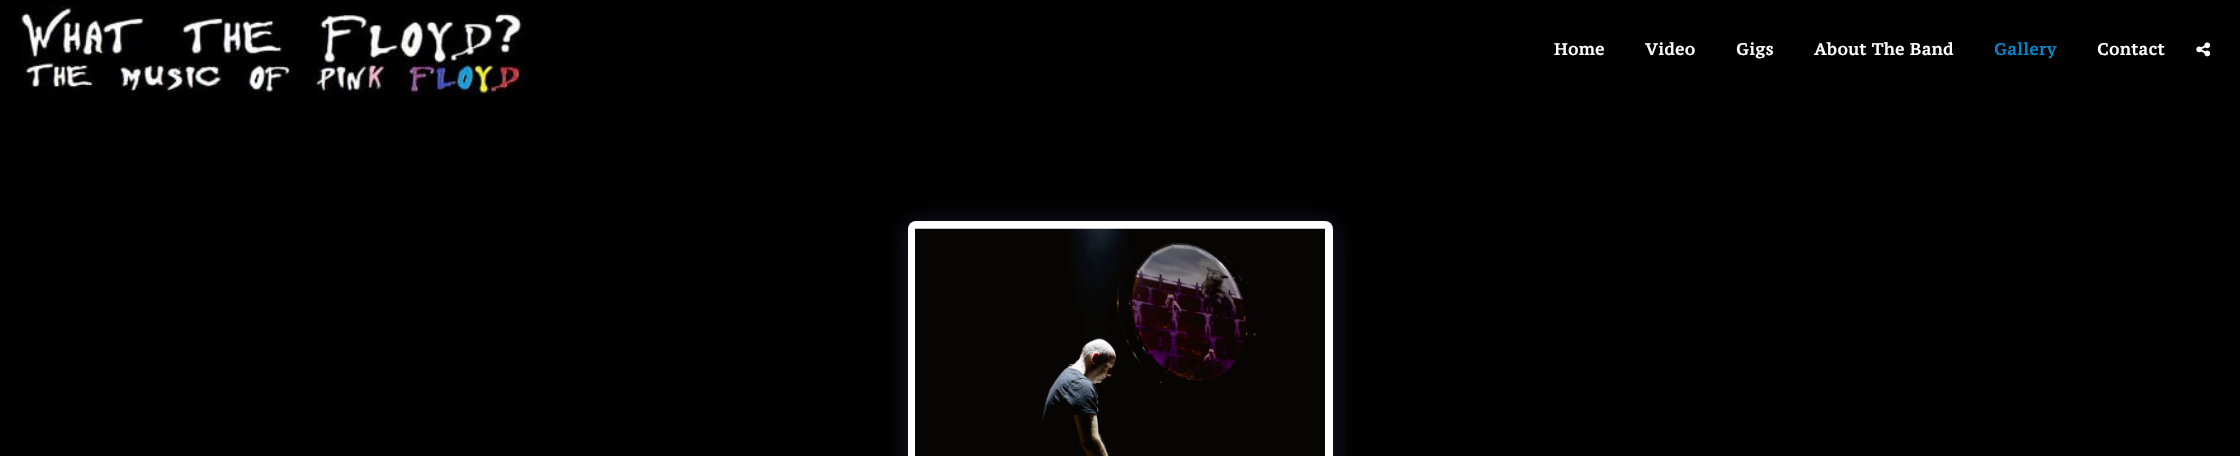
#include "include/core/SkBlurTypes.h"
#include "include/core/SkCanvas.h"
#include "include/core/SkData.h"
#include "include/core/SkFont.h"
#include "include/core/SkFontMgr.h"
#include "include/core/SkImage.h"
#include "include/core/SkMaskFilter.h"
#include "include/core/SkPaint.h"
#include "include/core/SkPathBuilder.h"
#include "include/core/SkTextBlob.h"
#include "include/effects/SkDashPathEffect.h"
#include "include/effects/SkGradientShader.h"
#include "include/utils/SkParsePath.h"

extern sk_sp<SkFontMgr> fontMgr;

void draw(SkCanvas* canvas) {
    SkPaint p;
    p.setAntiAlias(true);
    auto font = [&](const char* family, int weight, float size, bool italic = false) {
        SkFontStyle style(weight, SkFontStyle::kNormal_Width,
            italic ? SkFontStyle::kItalic_Slant : SkFontStyle::kUpright_Slant);
        SkFont result(fontMgr->matchFamilyStyle(family, style), size);
        result.setSubpixel(true);
        return result;
    };
    auto drawTracked = [&](const char* s, float x, float y, const SkFont& font, const SkPaint& ink, float letter, float word) {
        std::vector<SkGlyphID> glyphs(font.countText(s, strlen(s), SkTextEncoding::kUTF8));
        std::vector<float> xs(glyphs.size());
        font.textToGlyphs(s, strlen(s), SkTextEncoding::kUTF8, glyphs);
        font.getXPos(glyphs, xs, x);
        float extra = 0;
        for (size_t i = 0; i < glyphs.size(); i++) {
            xs[i] += extra;
            extra += letter + word * (glyphs[i] == font.unicharToGlyph(' '));
        }
        canvas->drawTextBlob(SkTextBlob::MakeFromPosHGlyphs(glyphs, xs, y, font), 0, 0, ink);
    };
    auto drawPhoto = [&](const char* path, float l, float t, float r, float b) {
        auto image = SkImages::DeferredFromEncodedData(SkData::MakeFromFileName(path));
        canvas->drawImageRect(image, SkRect::MakeLTRB(l, t, r, b), SkSamplingOptions());
    };
    canvas->clear(0xFF000000);
    drawPhoto("media/1.png", 18, 5, 526, 95);
    auto font1 = font("PT Serif Caption", 700, 16.25f);
    p.setColor(0xFFFFFFFF);
    {
        const struct { const char* s; float x, y; } items[] = {
            {"Home", 1554, 55},
            {"Video", 1645, 55},
            {"Gigs", 1736, 55},
            {"About The Band", 1814, 55},
        };
        for (auto [s, x, y] : items) {
            drawTracked(s, x, y, font1, p, 0.6f, 0);
        }
    }
    p.setColor(0xFF0088CC);
    drawTracked("Gallery", 1994, 55, font1, p, 0.6f, 0);
    p.setColor(0xFFFFFFFF);
    drawTracked("Contact", 2097, 55, font1, p, 0.6f, 0);
    drawPhoto("media/2.png", 2196, 42, 2210, 57);
    p.setColor(0x664D3F7A);
    p.setMaskFilter(SkMaskFilter::MakeBlur(kNormal_SkBlurStyle, 12.5f));
    canvas->drawRoundRect(SkRect::MakeLTRB(908, 225, 1333, 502), 8, 8, p);
    p.setMaskFilter(nullptr);
    p.setColor(0xFFFFFFFF);
    canvas->drawRoundRect(SkRect::MakeLTRB(908, 221, 1333, 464), 8, 8, p);
    drawPhoto("media/3.png", 915, 228, 1325, 456);
}
